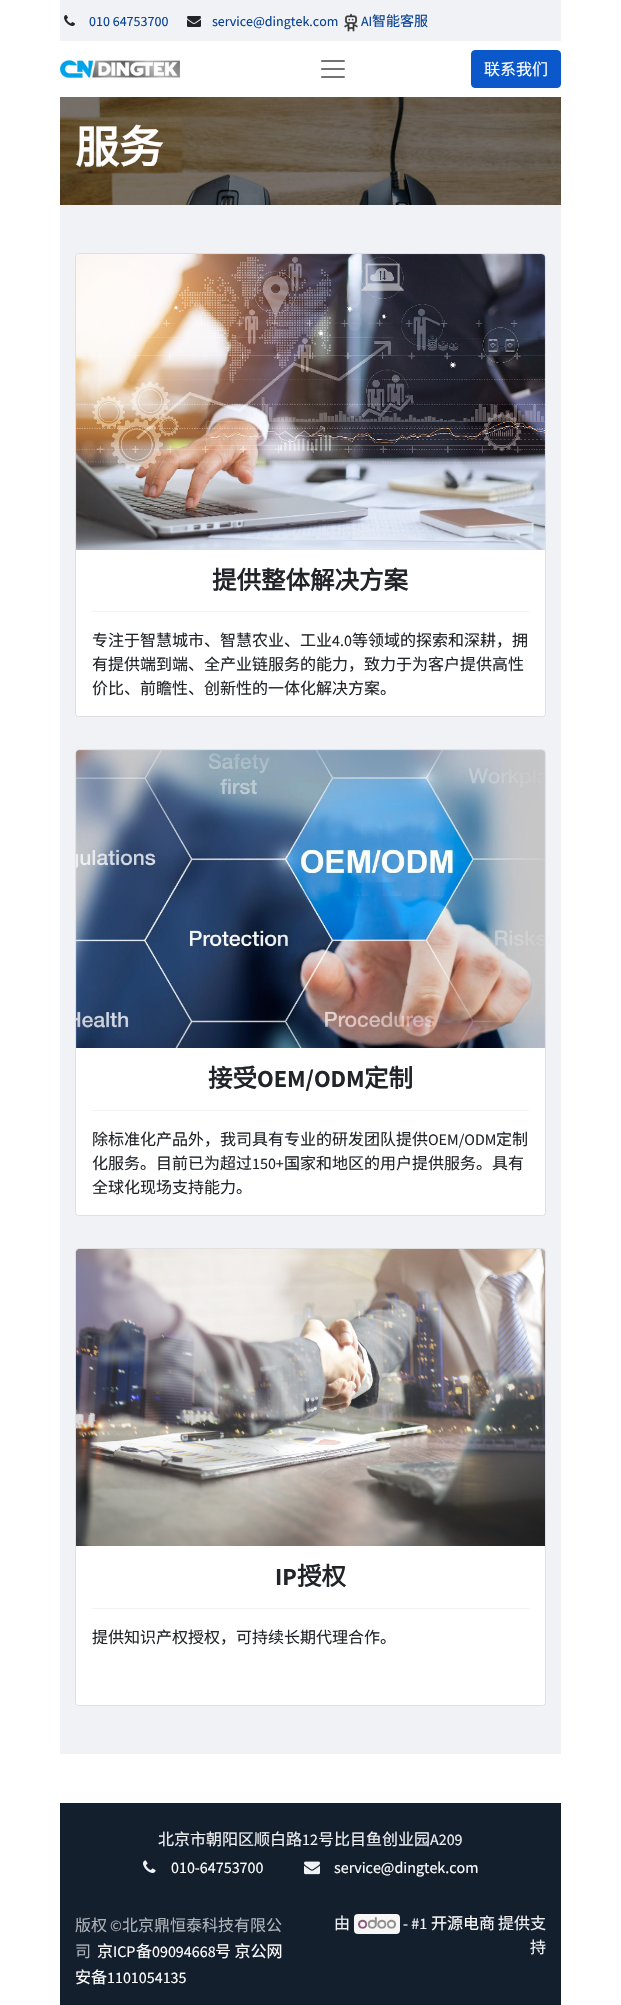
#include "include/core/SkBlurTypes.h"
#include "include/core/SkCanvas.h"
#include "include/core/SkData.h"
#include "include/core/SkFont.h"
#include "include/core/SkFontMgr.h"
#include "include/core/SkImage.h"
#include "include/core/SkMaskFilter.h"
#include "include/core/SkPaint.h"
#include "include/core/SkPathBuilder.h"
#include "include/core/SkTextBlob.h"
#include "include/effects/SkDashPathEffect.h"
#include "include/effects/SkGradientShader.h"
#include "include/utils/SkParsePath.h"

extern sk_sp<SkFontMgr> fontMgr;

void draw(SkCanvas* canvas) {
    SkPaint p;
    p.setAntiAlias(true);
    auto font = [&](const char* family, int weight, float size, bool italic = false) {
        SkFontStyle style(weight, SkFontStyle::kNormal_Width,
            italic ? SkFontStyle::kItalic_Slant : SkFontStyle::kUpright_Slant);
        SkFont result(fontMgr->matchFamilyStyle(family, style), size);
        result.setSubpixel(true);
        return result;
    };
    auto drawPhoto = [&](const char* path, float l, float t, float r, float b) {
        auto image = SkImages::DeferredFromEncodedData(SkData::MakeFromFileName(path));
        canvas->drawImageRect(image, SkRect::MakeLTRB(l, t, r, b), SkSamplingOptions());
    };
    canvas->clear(0xFFFFFFFF);
    p.setColor(0xFFF0F2F5);
    canvas->drawRect(SkRect::MakeLTRB(60, 0, 561, 41), p);
    drawPhoto("media/1.png", 64, 15, 75, 26);
    auto font1 = font("Source Sans Pro", 400, 14);
    p.setColor(0xFF074195);
    canvas->drawString("010 64753700", 89, 26, font1, p);
    drawPhoto("media/2.png", 187, 16, 201, 27);
    canvas->drawString("service@dingtek.com", 212, 26, font1, p);
    drawPhoto("media/3.png", 344, 13, 358, 32);
    canvas->drawString("AI", 361, 26, font1, p);
    auto font2 = font("Noto Sans CJK SC", 400, 14);
    canvas->drawString("智能客服", 372, 26, font2, p);
    drawPhoto("media/4.png", 60, 60, 180, 78);
    drawPhoto("media/5.png", 321, 60, 345, 78);
    p.setColor(0xFF0A58CA);
    canvas->drawRoundRect(SkRect::MakeLTRB(471.5f, 50.5f, 560.5f, 87.5f), 3.5f, 3.5f, p);
    p.setStyle(SkPaint::kStroke_Style);
    p.setStrokeWidth(1);
    canvas->drawRoundRect(SkRect::MakeLTRB(471.5f, 50.5f, 560.5f, 87.5f), 3.5f, 3.5f, p);
    auto font3 = font("Noto Sans CJK SC", 400, 16);
    p.setStyle(SkPaint::kFill_Style);
    p.setColor(0xFFFFFFFF);
    canvas->drawString("联系我们", 484, 75, font3, p);
    drawPhoto("media/6.png", 60, 97, 561, 205);
    auto font4 = font("Noto Sans CJK SC", 700, 44);
    canvas->drawString("服务", 75, 163, font4, p);
    p.setColor(0xFFF0F2F5);
    canvas->drawRect(SkRect::MakeLTRB(60, 205, 561, 1754), p);
    p.setColor(0xFFFFFFFF);
    canvas->drawRoundRect(SkRect::MakeLTRB(75, 253, 546, 717), 4, 4, p);
    p.setStyle(SkPaint::kStroke_Style);
    p.setColor(0x1F000000);
    canvas->drawRoundRect(SkRect::MakeLTRB(75.5f, 253.5f, 545.5f, 716.5f), 3.5f, 3.5f, p);
    drawPhoto("media/7.png", 76, 254, 545, 550);
    p.setStyle(SkPaint::kFill_Style);
    p.setColor(0xE6FFFFFF);
    canvas->drawPath(SkPathBuilder().moveTo(76, 550).lineTo(545, 550).lineTo(545, 713).cubicTo(545, 714.5f, 543.5f, 716, 542, 716).lineTo(79, 716).cubicTo(77.5f, 716, 76, 714.5f, 76, 713).close().detach(), p);
    auto font5 = font("Noto Sans CJK SC", 700, 24.5f);
    p.setColor(0xFF212529);
    canvas->drawString("提供整体解决方案", 212, 589, font5, p);
    p.setColor(0xFFF0F2F5);
    canvas->drawRect(SkRect::MakeLTRB(92, 611, 529, 612), p);
    p.setColor(0xFF212529);
    canvas->drawString("专注于智慧城市、智慧农业、工业", 92, 646, font3, p);
    auto font6 = font("Source Sans Pro", 400, 16);
    canvas->drawString("4.0", 332, 646, font6, p);
    {
        const struct { const char* s; float x, y; } items[] = {
            {"等领域的探索和深耕，拥", 352, 646},
            {"有提供端到端、全产业链服务的能力，致力于为客户提供高性", 92, 670},
            {"价比、前瞻性、创新性的一体化解决方案。", 92, 694},
        };
        for (auto [s, x, y] : items) {
            canvas->drawString(s, x, y, font3, p);
        }
    }
    p.setColor(0xFFFFFFFF);
    canvas->drawRoundRect(SkRect::MakeLTRB(75, 749, 546, 1216), 4, 4, p);
    p.setStyle(SkPaint::kStroke_Style);
    p.setColor(0x1F000000);
    canvas->drawRoundRect(SkRect::MakeLTRB(75.5f, 749.5f, 545.5f, 1215.5f), 3.5f, 3.5f, p);
    drawPhoto("media/8.png", 76, 750, 545, 1048);
    p.setStyle(SkPaint::kFill_Style);
    p.setColor(0xE6FFFFFF);
    canvas->drawPath(SkPathBuilder().moveTo(76, 1048).lineTo(545, 1048).lineTo(545, 1212).cubicTo(545, 1213.5f, 543.5f, 1215, 542, 1215).lineTo(79, 1215).cubicTo(77.5f, 1215, 76, 1213.5f, 76, 1212).close().detach(), p);
    p.setColor(0xFF212529);
    canvas->drawString("接受", 208, 1087, font5, p);
    auto font7 = font("Assistant", 700, 24.5f);
    canvas->drawString("OEM/ODM", 257, 1087, font7, p);
    canvas->drawString("定制", 364, 1087, font5, p);
    p.setColor(0xFFF0F2F5);
    canvas->drawRect(SkRect::MakeLTRB(92, 1110, 529, 1111), p);
    p.setColor(0xFF212529);
    canvas->drawString("除标准化产品外，我司具有专业的研发团队提供", 92, 1145, font3, p);
    canvas->drawString("OEM/ODM", 428, 1145, font6, p);
    canvas->drawString("定制", 496, 1145, font3, p);
    canvas->drawString("化服务。目前已为超过", 92, 1169, font3, p);
    canvas->drawString("150+", 252, 1169, font6, p);
    canvas->drawString("国家和地区的用户提供服务。具有", 284, 1169, font3, p);
    canvas->drawString("全球化现场支持能力。", 92, 1193, font3, p);
    p.setColor(0xFFFFFFFF);
    canvas->drawRoundRect(SkRect::MakeLTRB(75, 1248, 546, 1706), 4, 4, p);
    p.setStyle(SkPaint::kStroke_Style);
    p.setColor(0x1F000000);
    canvas->drawRoundRect(SkRect::MakeLTRB(75.5f, 1248.5f, 545.5f, 1705.5f), 3.5f, 3.5f, p);
    drawPhoto("media/9.png", 76, 1249, 545, 1546);
    p.setStyle(SkPaint::kFill_Style);
    p.setColor(0xE6FFFFFF);
    canvas->drawPath(SkPathBuilder().moveTo(76, 1546).lineTo(545, 1546).lineTo(545, 1702).cubicTo(545, 1703.5f, 543.5f, 1705, 542, 1705).lineTo(79, 1705).cubicTo(77.5f, 1705, 76, 1703.5f, 76, 1702).close().detach(), p);
    p.setColor(0xFF212529);
    canvas->drawString("IP", 275, 1585, font7, p);
    canvas->drawString("授权", 297, 1585, font5, p);
    p.setColor(0xFFF0F2F5);
    canvas->drawRect(SkRect::MakeLTRB(92, 1608, 529, 1609), p);
    p.setColor(0xFF212529);
    canvas->drawString("提供知识产权授权，可持续长期代理合作。", 92, 1643, font3, p);
    p.setColor(0xFF141F2E);
    canvas->drawRect(SkRect::MakeLTRB(60, 1803, 561, 2005), p);
    p.setColor(0xFFF0F2F5);
    canvas->drawString("北京市朝阳区顺白路", 158, 1845, font3, p);
    canvas->drawString("12", 302, 1845, font6, p);
    canvas->drawString("号比目鱼创业园", 318, 1845, font3, p);
    canvas->drawString("A209", 430, 1845, font6, p);
    drawPhoto("media/10.png", 143, 1860, 156, 1873);
    p.setColor(0xFFFFFFFF);
    canvas->drawString("010-64753700", 171, 1873, font6, p);
    drawPhoto("media/11.png", 304, 1861, 320, 1875);
    canvas->drawString("service@dingtek.com", 334, 1873, font6, p);
    p.setColor(0xFFAEB3B9);
    canvas->drawString("版权", 75, 1931, font3, p);
    canvas->drawString("©", 110, 1931, font6, p);
    canvas->drawString("北京鼎恒泰科技有限公", 122, 1931, font3, p);
    canvas->drawString("司", 75, 1957, font3, p);
    p.setColor(0xFFFFFFFF);
    canvas->drawString("京", 97, 1957, font3, p);
    canvas->drawString("ICP", 113, 1957, font6, p);
    canvas->drawString("备", 136, 1957, font3, p);
    canvas->drawString("09094668", 152, 1957, font6, p);
    canvas->drawString("号 京公网", 215, 1957, font3, p);
    canvas->drawString("安备", 75, 1983, font3, p);
    canvas->drawString("1101054135", 107, 1983, font6, p);
    p.setColor(0xFFF0F2F5);
    canvas->drawString("由", 334, 1929, font3, p);
    p.setColor(0xFFF7F7F8);
    canvas->drawRoundRect(SkRect::MakeLTRB(354, 1914, 400, 1934), 4, 4, p);
    drawPhoto("media/12.png", 358, 1917, 396, 1929);
    p.setColor(0xFFF0F2F5);
    canvas->drawString("- #1", 403, 1929, font6, p);
    p.setColor(0xFFFFFFFF);
    canvas->drawString("开源电商", 431, 1929, font3, p);
    p.setColor(0xFFF0F2F5);
    canvas->drawString("提供支", 498, 1929, font3, p);
    canvas->drawString("持", 530, 1953, font3, p);
}
